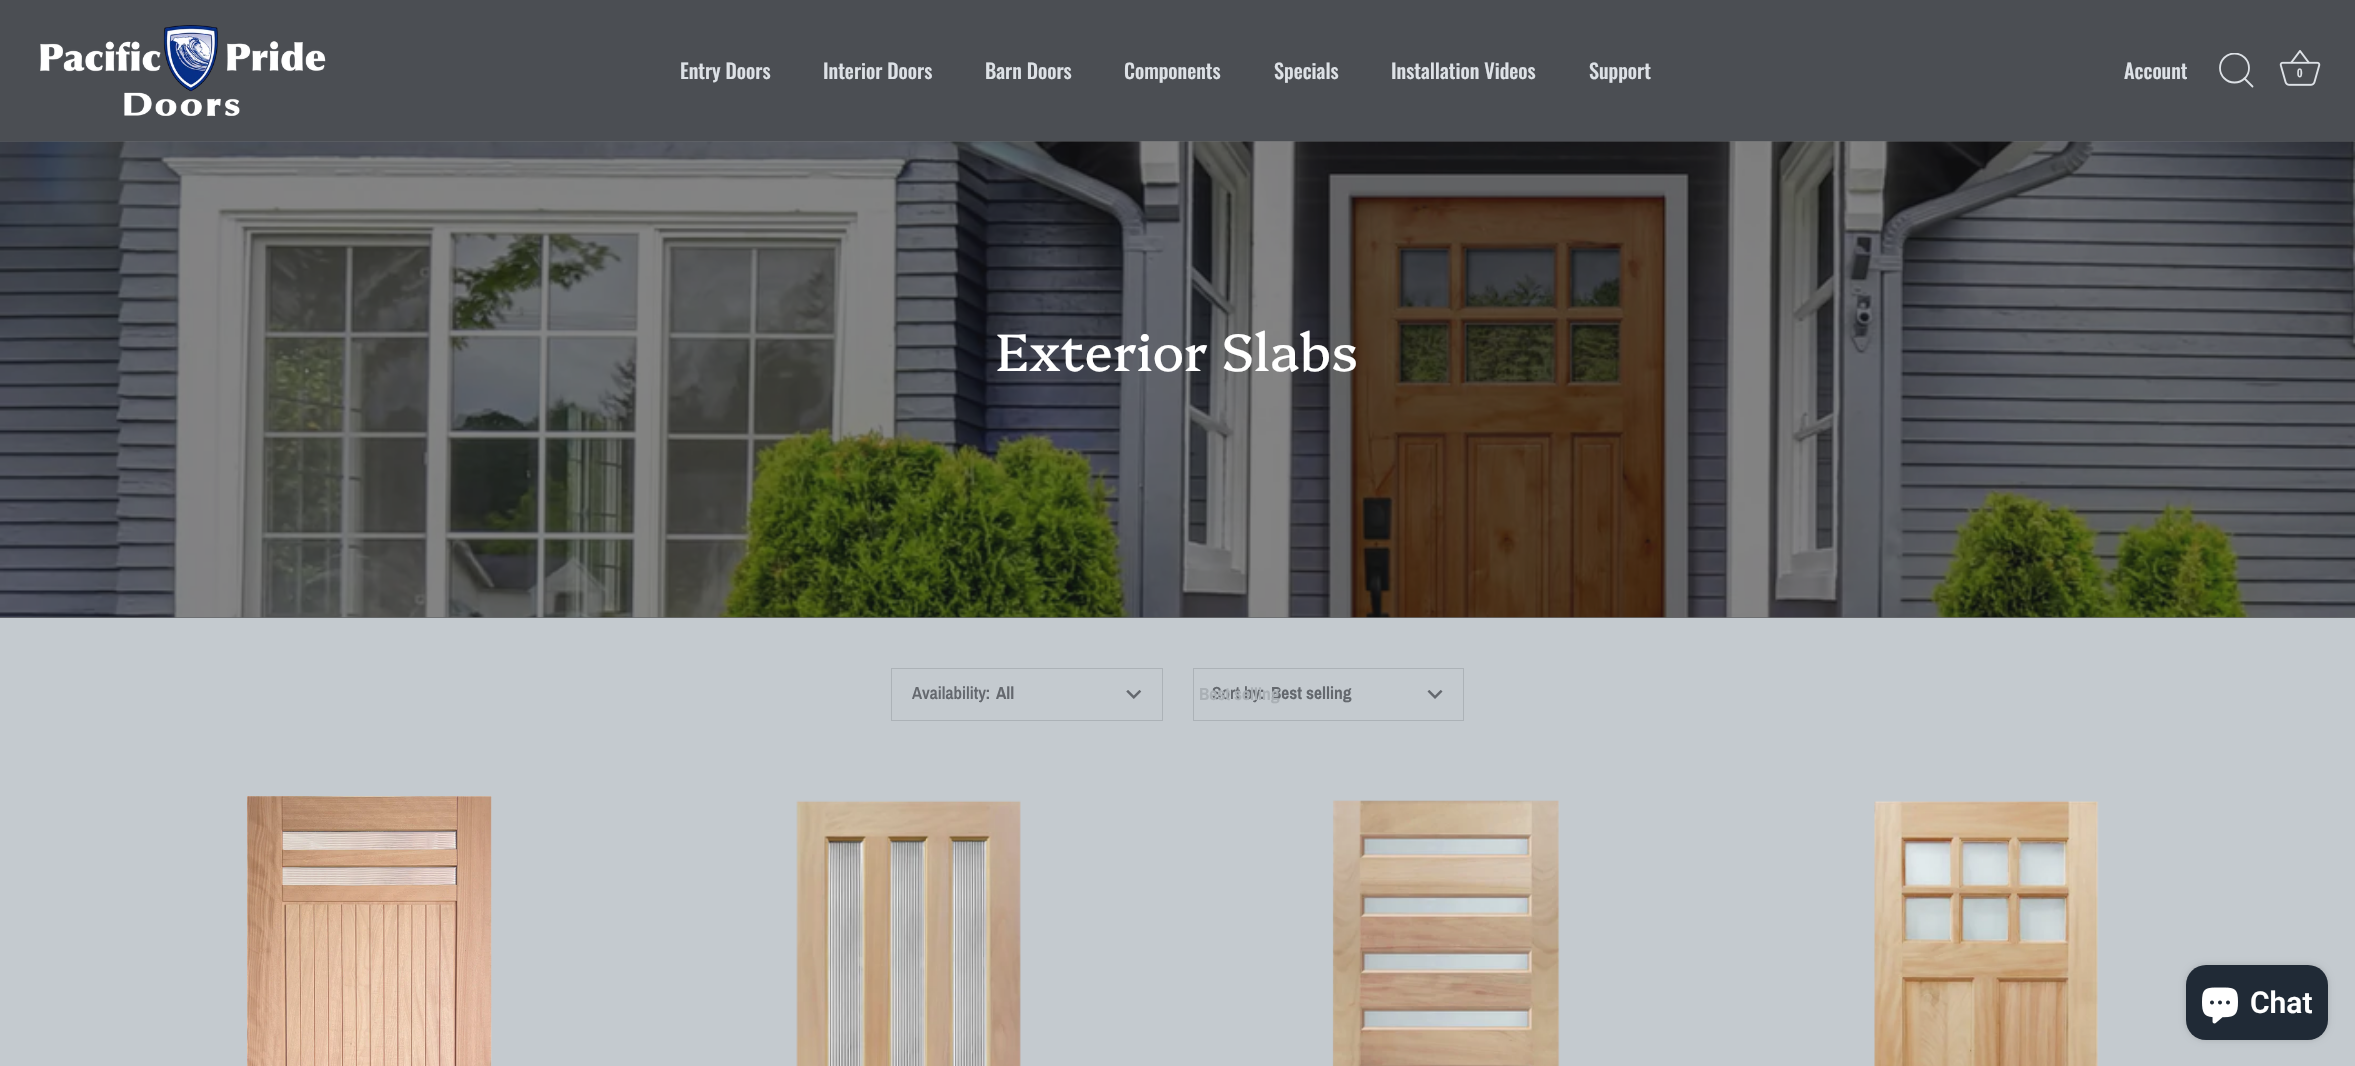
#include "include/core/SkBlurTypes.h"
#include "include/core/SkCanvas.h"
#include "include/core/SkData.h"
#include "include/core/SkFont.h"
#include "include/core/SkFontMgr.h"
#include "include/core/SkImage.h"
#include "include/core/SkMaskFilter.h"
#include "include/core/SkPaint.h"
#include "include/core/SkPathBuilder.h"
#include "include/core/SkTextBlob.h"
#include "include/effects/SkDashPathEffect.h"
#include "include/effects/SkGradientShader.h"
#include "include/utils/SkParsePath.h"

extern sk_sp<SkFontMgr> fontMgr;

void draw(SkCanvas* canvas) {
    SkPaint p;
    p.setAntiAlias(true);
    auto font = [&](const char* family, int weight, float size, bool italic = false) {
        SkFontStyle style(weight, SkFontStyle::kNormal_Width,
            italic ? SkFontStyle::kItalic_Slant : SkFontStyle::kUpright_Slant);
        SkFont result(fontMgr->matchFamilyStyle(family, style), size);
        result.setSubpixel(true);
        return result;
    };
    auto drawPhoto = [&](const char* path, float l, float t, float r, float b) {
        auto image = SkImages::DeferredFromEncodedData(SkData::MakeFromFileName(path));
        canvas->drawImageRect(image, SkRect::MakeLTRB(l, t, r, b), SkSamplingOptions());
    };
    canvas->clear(0xFFC4CACF);
    p.setColor(0xFF686B6D);
    canvas->drawRect(SkRect::MakeLTRB(0, 141, 2355, 618), p);
    p.setColor(0xFF4B4E53);
    canvas->drawRect(SkRect::MakeLTRB(0, 0, 2355, 141), p);
    drawPhoto("media/1.png", 40, 25, 326, 116);
    auto font1 = font("Oswald", 500, 20.25f);
    p.setColor(0xFFDDE1E6);
    {
        const struct { const char* s; float x, y; } items[] = {
            {"Entry Doors", 680, 79},
            {"Interior Doors", 823, 79},
            {"Barn Doors", 985, 79},
            {"Components", 1124, 79},
            {"Specials", 1274, 79},
            {"Installation Videos", 1391, 79},
            {"Support", 1589, 79},
            {"Account", 2124, 79},
        };
        for (auto [s, x, y] : items) {
            canvas->drawString(s, x, y, font1, p);
        }
    }
    canvas->save();
    canvas->clipRect(SkRect::MakeLTRB(2219, 53, 2255, 89));
    p.setStyle(SkPaint::kStroke_Style);
    p.setStrokeWidth(1.8f);
    canvas->drawCircle(2234.5f, 68, 14.5f, p);
    canvas->restore();
    p.setStrokeCap(SkPaint::kRound_Cap);
    p.setStrokeJoin(SkPaint::kRound_Join);
    canvas->drawPath(SkPathBuilder().moveTo(2252.5f, 86.5f).lineTo(2244.5f, 78.5f).detach(), p);
    drawPhoto("media/2.png", 2279, 50, 2321, 86);
    auto font2 = font("Archivo Narrow", 700, 12);
    p.setStyle(SkPaint::kFill_Style);
    canvas->drawString("0", 2297, 77, font2, p);
    drawPhoto("media/3.png", 0, 141, 2355, 618);
    auto font3 = font("Platypi", 400, 52.5f);
    p.setColor(0xFFFFFFFF);
    canvas->drawString("Exterior Slabs", 996, 371, font3, p);
    p.setStyle(SkPaint::kStroke_Style);
    p.setStrokeWidth(1);
    p.setStrokeCap(SkPaint::kButt_Cap);
    p.setStrokeJoin(SkPaint::kMiter_Join);
    p.setColor(0xFFACB2B7);
    canvas->drawRect(SkRect::MakeLTRB(891.5f, 668.5f, 1162.5f, 720.5f), p);
    auto font4 = font("Archivo Narrow", 600, 17.5f);
    p.setStyle(SkPaint::kFill_Style);
    p.setColor(0xFF64686E);
    canvas->drawString("Availability:", 912, 699, font4, p);
    auto font5 = font("Archivo Narrow", 700, 17.5f);
    canvas->drawString("All", 996, 699, font5, p);
    drawPhoto("media/4.png", 1126, 690, 1142, 699);
    p.setStyle(SkPaint::kStroke_Style);
    p.setColor(0xFFACB2B7);
    canvas->drawRect(SkRect::MakeLTRB(1193.5f, 668.5f, 1463.5f, 720.5f), p);
    p.setStyle(SkPaint::kFill_Style);
    p.setColor(0xFF64686E);
    canvas->drawString("Sort by:", 1212, 699, font4, p);
    canvas->drawString("Best selling", 1271, 699, font5, p);
    p.setColor(0xFFAAB0B5);
    canvas->drawString("Best selling", 1199, 700, font5, p);
    drawPhoto("media/5.png", 1427, 690, 1443, 699);
    drawPhoto("media/6.png", 247, 796, 492, 1066);
    drawPhoto("media/7.png", 796, 800, 1021, 1066);
    drawPhoto("media/8.png", 1332, 800, 1560, 1066);
    drawPhoto("media/9.png", 1874, 800, 2099, 1066);
    p.setColor(0x26000000);
    p.setMaskFilter(SkMaskFilter::MakeBlur(kNormal_SkBlurStyle, 3));
    canvas->drawRoundRect(SkRect::MakeLTRB(2186, 965, 2328, 1040), 20, 20, p);
    p.setMaskFilter(nullptr);
    p.setColor(0xFF202A36);
    canvas->drawRoundRect(SkRect::MakeLTRB(2186, 965, 2328, 1040), 20, 20, p);
    drawPhoto("media/10.png", 2202, 987, 2238, 1024);
    auto font6 = font("Roboto", 600, 30);
    p.setColor(0xFFFFFFFF);
    canvas->drawString("Chat", 2250, 1013, font6, p);
}
